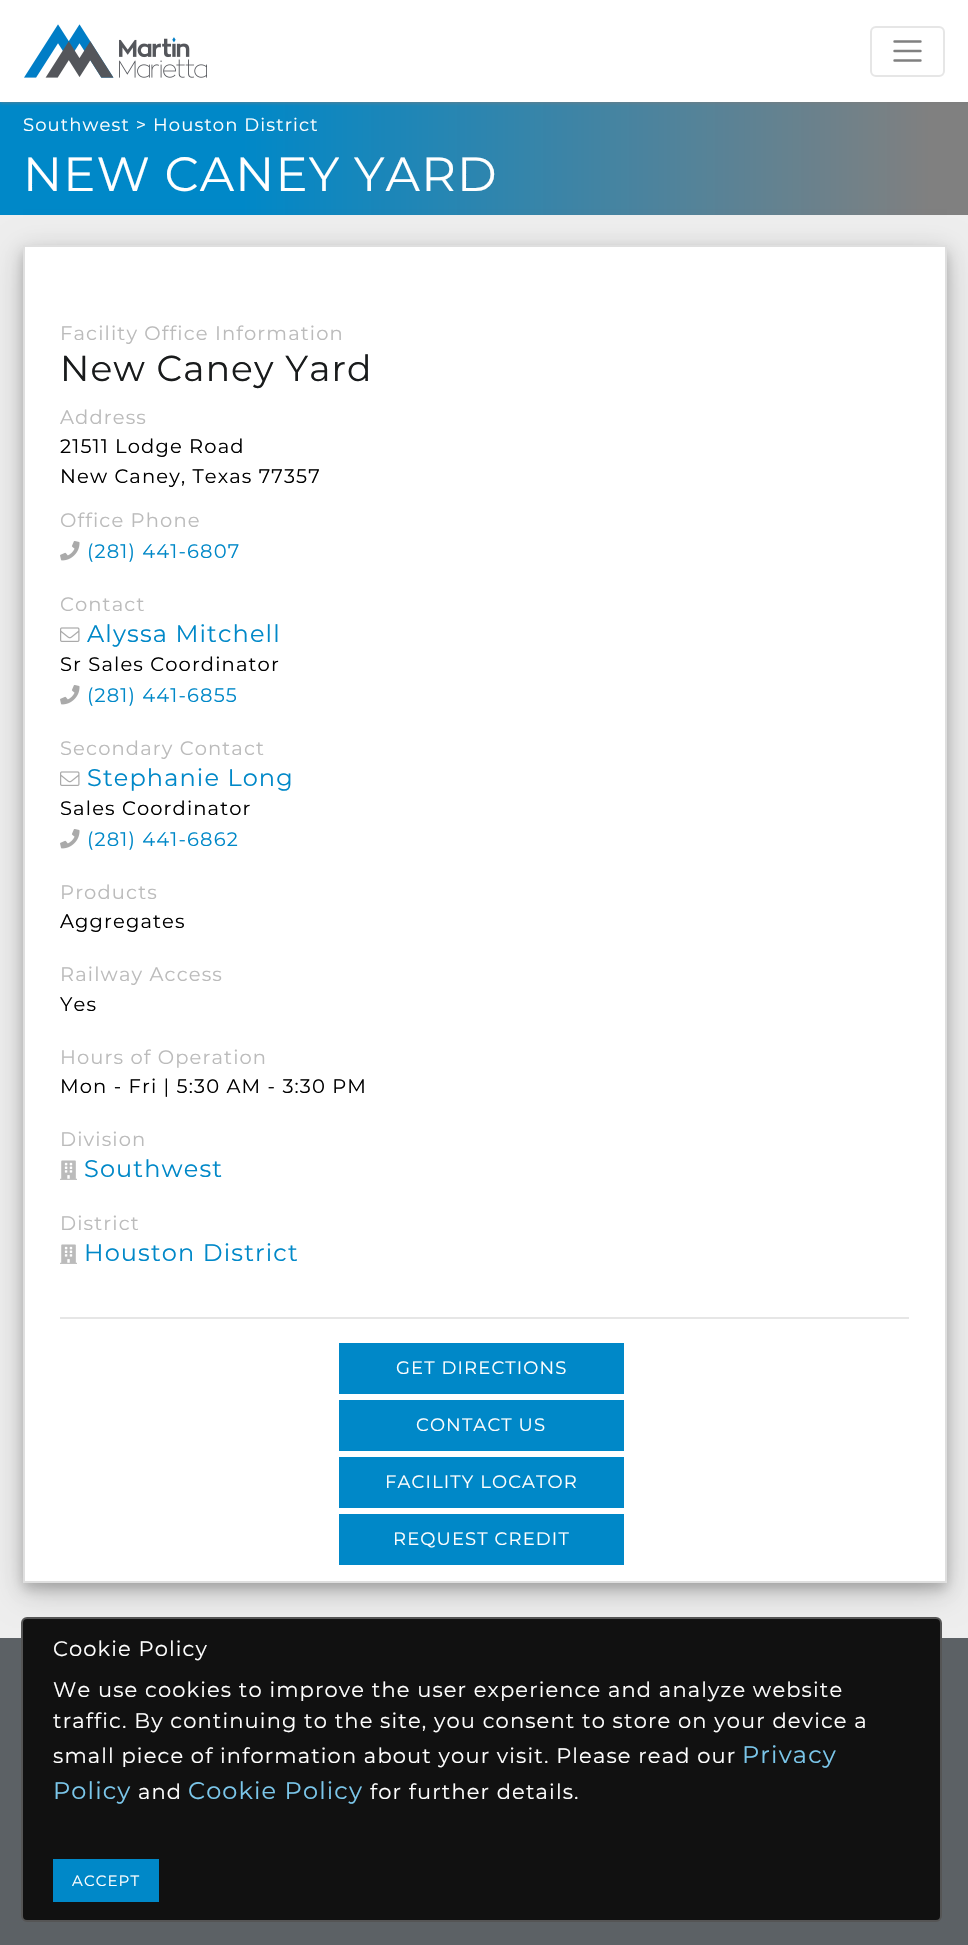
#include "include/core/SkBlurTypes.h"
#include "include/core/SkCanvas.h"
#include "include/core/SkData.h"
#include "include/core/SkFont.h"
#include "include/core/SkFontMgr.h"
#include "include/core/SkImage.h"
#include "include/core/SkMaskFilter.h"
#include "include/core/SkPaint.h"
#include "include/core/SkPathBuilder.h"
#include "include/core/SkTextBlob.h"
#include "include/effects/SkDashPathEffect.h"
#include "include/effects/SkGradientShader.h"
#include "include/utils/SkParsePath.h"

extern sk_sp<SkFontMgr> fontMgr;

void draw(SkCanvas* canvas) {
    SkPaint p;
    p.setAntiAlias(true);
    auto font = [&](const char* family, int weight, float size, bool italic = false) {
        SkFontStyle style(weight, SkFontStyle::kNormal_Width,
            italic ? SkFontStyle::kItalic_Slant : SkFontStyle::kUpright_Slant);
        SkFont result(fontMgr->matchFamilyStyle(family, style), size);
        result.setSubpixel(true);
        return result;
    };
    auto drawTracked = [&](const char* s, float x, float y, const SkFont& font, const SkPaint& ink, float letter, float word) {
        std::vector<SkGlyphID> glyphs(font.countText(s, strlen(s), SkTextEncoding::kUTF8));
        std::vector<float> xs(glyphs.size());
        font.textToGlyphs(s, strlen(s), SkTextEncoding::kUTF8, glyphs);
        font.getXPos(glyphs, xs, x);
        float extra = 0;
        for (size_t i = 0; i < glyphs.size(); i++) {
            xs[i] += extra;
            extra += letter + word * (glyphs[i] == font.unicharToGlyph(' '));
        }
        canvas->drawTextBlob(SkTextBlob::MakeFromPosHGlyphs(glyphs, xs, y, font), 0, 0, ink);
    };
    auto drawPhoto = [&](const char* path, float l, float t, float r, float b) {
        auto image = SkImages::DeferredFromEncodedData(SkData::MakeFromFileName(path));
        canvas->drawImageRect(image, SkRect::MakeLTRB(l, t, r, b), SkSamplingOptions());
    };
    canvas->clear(0xFFFFFFFF);
    {
        const SkColor colors[] = {0xFF0088C8, 0xFF808080};
        const float stops[] = {0.25f, 0.96f};
        const SkPoint ends[] = {{0, 158}, {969, 158}};
        p.setShader(SkGradientShader::MakeLinear(ends, colors, stops, 2, SkTileMode::kClamp));
        p.setAlpha(255);
    }
    canvas->drawRect(SkRect::MakeLTRB(0, 102, 968, 215), p);
    canvas->save();
    canvas->clipRect(SkRect::MakeLTRB(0, 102, 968, 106));
    p.setShader(nullptr);
    p.setColor(0xFF7B7B7B);
    p.setMaskFilter(SkMaskFilter::MakeBlur(kNormal_SkBlurStyle, 2));
    canvas->drawRect(SkRect::MakeLTRB(0, 0, 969, 102), p);
    p.setMaskFilter(nullptr);
    canvas->restore();
    drawPhoto("media/1.png", 24, 24, 207, 78);
    p.setStyle(SkPaint::kStroke_Style);
    p.setStrokeWidth(2);
    p.setColor(0xFFE6E6E6);
    canvas->drawRoundRect(SkRect::MakeLTRB(871, 27, 944, 76), 5, 5, p);
    p.setStrokeWidth(2.4f);
    p.setStrokeCap(SkPaint::kRound_Cap);
    p.setColor(0xFF808080);
    canvas->drawPath(SkPathBuilder().moveTo(894.5f, 41.5f).lineTo(920.5f, 41.5f).moveTo(894.5f, 51).lineTo(920.5f, 51).moveTo(894.5f, 60.5f).lineTo(920.5f, 60.5f).detach(), p);
    auto font1 = font("Montserrat", 400, 18);
    p.setStyle(SkPaint::kFill_Style);
    p.setColor(0xFFFFFFFF);
    drawTracked("Southwest > Houston District", 23, 131, font1, p, 1.13f, 0);
    auto font2 = font("Montserrat", 400, 48);
    drawTracked("NEW CANEY YARD", 23, 191, font2, p, 1.13f, 0);
    p.setColor(0xFFEEEEEE);
    canvas->drawRect(SkRect::MakeLTRB(0, 215, 968, 1638), p);
    p.setColor(0x30000000);
    p.setMaskFilter(SkMaskFilter::MakeBlur(kNormal_SkBlurStyle, 15));
    canvas->drawRect(SkRect::MakeLTRB(23, 254, 947, 1592), p);
    p.setMaskFilter(nullptr);
    p.setColor(0x33000000);
    p.setMaskFilter(SkMaskFilter::MakeBlur(kNormal_SkBlurStyle, 6));
    canvas->drawRect(SkRect::MakeLTRB(23, 251, 947, 1589), p);
    p.setMaskFilter(nullptr);
    p.setColor(0xFFFFFFFF);
    canvas->drawRect(SkRect::MakeLTRB(24, 246, 946, 1582), p);
    p.setStyle(SkPaint::kStroke_Style);
    p.setStrokeWidth(2);
    p.setStrokeCap(SkPaint::kButt_Cap);
    p.setColor(0xFFDFDFDF);
    canvas->drawRect(SkRect::MakeLTRB(24, 246, 946, 1582), p);
    auto font3 = font("Montserrat", 400, 19.5f);
    p.setStyle(SkPaint::kFill_Style);
    p.setColor(0xFFBBBBBB);
    drawTracked("Facility Office Information", 60, 340, font3, p, 1.13f, 0);
    auto font4 = font("Montserrat", 400, 36);
    p.setColor(0xFF191B1C);
    drawTracked("New Caney Yard", 60, 381, font4, p, 1.13f, 0);
    p.setColor(0xFFBBBBBB);
    drawTracked("Address", 60, 424, font3, p, 1.13f, 0);
    p.setColor(0xFF000000);
    drawTracked("21511 Lodge Road", 60, 453, font3, p, 1.13f, 0);
    drawTracked("New Caney, Texas 77357", 60, 483, font3, p, 1.13f, 0);
    p.setColor(0xFFBBBBBB);
    drawTracked("Office Phone", 60, 527, font3, p, 1.13f, 0);
    drawPhoto("media/2.png", 60, 541, 80, 561);
    p.setColor(0xFF0088C8);
    drawTracked("(281) 441-6807", 87, 558, font3, p, 1.13f, 0);
    p.setColor(0xFFBBBBBB);
    drawTracked("Contact", 60, 611, font3, p, 1.13f, 0);
    drawPhoto("media/3.png", 60, 627, 80, 642);
    auto font5 = font("Montserrat", 400, 24);
    p.setColor(0xFF0088C8);
    drawTracked("Alyssa Mitchell", 87, 642, font5, p, 1.13f, 0);
    p.setColor(0xFF000000);
    drawTracked("Sr Sales Coordinator", 60, 671, font3, p, 1.13f, 0);
    drawPhoto("media/2.png", 60, 685, 80, 705);
    p.setColor(0xFF0088C8);
    drawTracked("(281) 441-6855", 87, 702, font3, p, 1.13f, 0);
    p.setColor(0xFFBBBBBB);
    drawTracked("Secondary Contact", 60, 755, font3, p, 1.13f, 0);
    drawPhoto("media/3.png", 60, 771, 80, 786);
    p.setColor(0xFF0088C8);
    drawTracked("Stephanie Long", 87, 786, font5, p, 1.13f, 0);
    p.setColor(0xFF000000);
    drawTracked("Sales Coordinator", 60, 815, font3, p, 1.13f, 0);
    drawPhoto("media/2.png", 60, 829, 80, 849);
    p.setColor(0xFF0088C8);
    drawTracked("(281) 441-6862", 87, 846, font3, p, 1.13f, 0);
    p.setColor(0xFFBBBBBB);
    drawTracked("Products", 60, 899, font3, p, 1.13f, 0);
    p.setColor(0xFF000000);
    drawTracked("Aggregates", 60, 928, font3, p, 1.13f, 0);
    p.setColor(0xFFBBBBBB);
    drawTracked("Railway Access", 60, 981, font3, p, 1.13f, 0);
    p.setColor(0xFF000000);
    drawTracked("Yes", 60, 1011, font3, p, 1.13f, 0);
    p.setColor(0xFFBBBBBB);
    drawTracked("Hours of Operation", 60, 1064, font3, p, 1.13f, 0);
    p.setColor(0xFF000000);
    drawTracked("Mon - Fri | 5:30 AM - 3:30 PM", 60, 1093, font3, p, 1.13f, 0);
    p.setColor(0xFFBBBBBB);
    drawTracked("Division", 60, 1146, font3, p, 1.13f, 0);
    drawPhoto("media/4.png", 60, 1160, 77, 1180);
    p.setColor(0xFF0088C8);
    drawTracked("Southwest", 84, 1177, font5, p, 1.13f, 0);
    p.setColor(0xFFBBBBBB);
    drawTracked("District", 60, 1230, font3, p, 1.13f, 0);
    drawPhoto("media/4.png", 60, 1244, 77, 1264);
    p.setColor(0xFF0088C8);
    drawTracked("Houston District", 84, 1261, font5, p, 1.13f, 0);
    p.setColor(0xFFE6E6E6);
    canvas->drawRect(SkRect::MakeLTRB(60, 1317, 909, 1319), p);
    p.setColor(0xFF0088C8);
    canvas->drawRect(SkRect::MakeLTRB(339, 1343, 624, 1394), p);
    p.setColor(0xFFFFFFFF);
    drawTracked("GET DIRECTIONS", 396, 1374, font1, p, 1.13f, 0);
    p.setColor(0xFF0088C8);
    canvas->drawRect(SkRect::MakeLTRB(339, 1400, 624, 1451), p);
    p.setColor(0xFFFFFFFF);
    drawTracked("CONTACT US", 416, 1431, font1, p, 1.13f, 0);
    p.setColor(0xFF0088C8);
    canvas->drawRect(SkRect::MakeLTRB(339, 1457, 624, 1508), p);
    p.setColor(0xFFFFFFFF);
    drawTracked("FACILITY LOCATOR", 385, 1488, font1, p, 1.13f, 0);
    p.setColor(0xFF0088C8);
    canvas->drawRect(SkRect::MakeLTRB(339, 1514, 624, 1565), p);
    p.setColor(0xFFFFFFFF);
    drawTracked("REQUEST CREDIT", 393, 1545, font1, p, 1.13f, 0);
    p.setColor(0xFF5C6165);
    canvas->drawRect(SkRect::MakeLTRB(0, 1638, 968, 1945), p);
    p.setColor(0xFF111111);
    canvas->drawRoundRect(SkRect::MakeLTRB(22, 1618, 941, 1921), 5, 5, p);
    p.setStyle(SkPaint::kStroke_Style);
    p.setColor(0xFF555555);
    canvas->drawRoundRect(SkRect::MakeLTRB(22, 1618, 941, 1921), 5, 5, p);
    auto font6 = font("Montserrat", 400, 21);
    p.setStyle(SkPaint::kFill_Style);
    p.setColor(0xFFFFFFFF);
    {
        const struct { const char* s; float x, y; } items[] = {
            {"Cookie Policy", 53, 1656},
            {"We use cookies to improve the user experience and analyze website", 53, 1697},
            {"traffic. By continuing to the site, you consent to store on your device a", 53, 1728},
            {"small piece of information about your visit. Please read our", 53, 1763},
        };
        for (auto [s, x, y] : items) {
            drawTracked(s, x, y, font6, p, 1.13f, 0);
        }
    }
    p.setColor(0xFF7BC7EB);
    drawTracked("Privacy", 742, 1763, font5, p, 1.13f, 0);
    drawTracked("Policy", 53, 1799, font5, p, 1.13f, 0);
    p.setColor(0xFFFFFFFF);
    drawTracked("and", 138, 1799, font6, p, 1.13f, 0);
    p.setColor(0xFF7BC7EB);
    drawTracked("Cookie Policy", 188, 1799, font5, p, 1.13f, 0);
    p.setColor(0xFFFFFFFF);
    drawTracked("for further details.", 370, 1799, font6, p, 1.13f, 0);
    p.setColor(0xFF0088C8);
    canvas->drawRect(SkRect::MakeLTRB(53, 1859, 159, 1902), p);
    auto font7 = font("Montserrat", 400, 15);
    p.setColor(0xFFFFFFFF);
    drawTracked("ACCEPT", 72, 1886, font7, p, 1.13f, 0);
}
